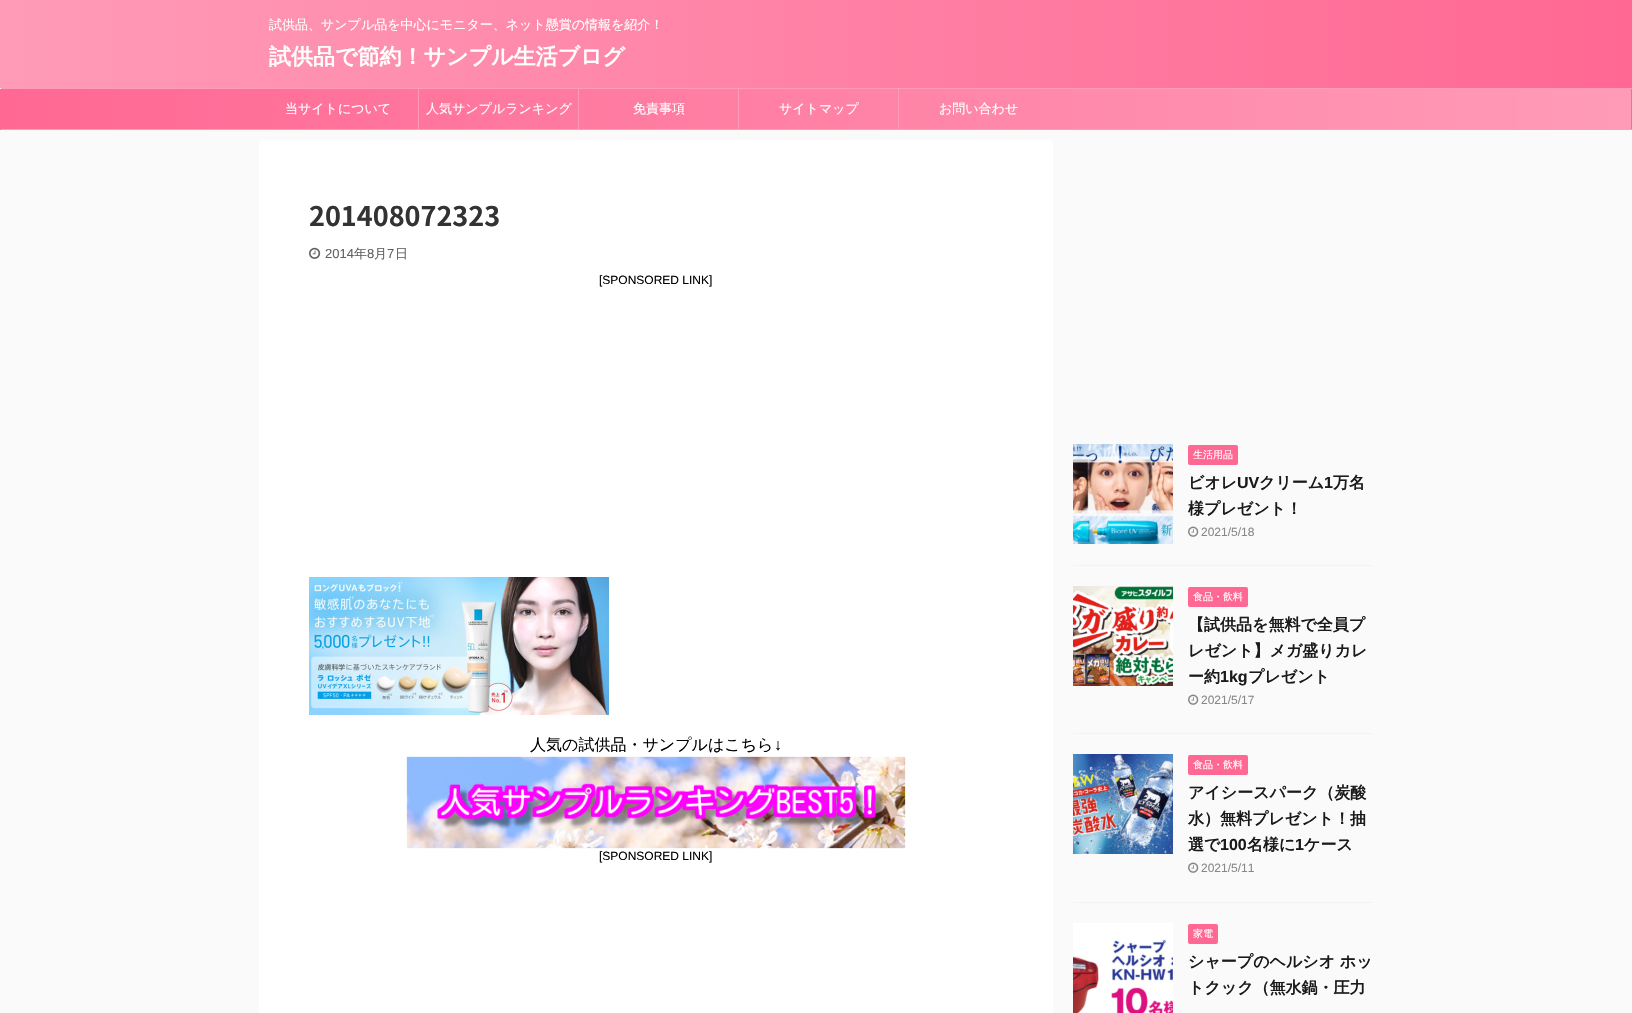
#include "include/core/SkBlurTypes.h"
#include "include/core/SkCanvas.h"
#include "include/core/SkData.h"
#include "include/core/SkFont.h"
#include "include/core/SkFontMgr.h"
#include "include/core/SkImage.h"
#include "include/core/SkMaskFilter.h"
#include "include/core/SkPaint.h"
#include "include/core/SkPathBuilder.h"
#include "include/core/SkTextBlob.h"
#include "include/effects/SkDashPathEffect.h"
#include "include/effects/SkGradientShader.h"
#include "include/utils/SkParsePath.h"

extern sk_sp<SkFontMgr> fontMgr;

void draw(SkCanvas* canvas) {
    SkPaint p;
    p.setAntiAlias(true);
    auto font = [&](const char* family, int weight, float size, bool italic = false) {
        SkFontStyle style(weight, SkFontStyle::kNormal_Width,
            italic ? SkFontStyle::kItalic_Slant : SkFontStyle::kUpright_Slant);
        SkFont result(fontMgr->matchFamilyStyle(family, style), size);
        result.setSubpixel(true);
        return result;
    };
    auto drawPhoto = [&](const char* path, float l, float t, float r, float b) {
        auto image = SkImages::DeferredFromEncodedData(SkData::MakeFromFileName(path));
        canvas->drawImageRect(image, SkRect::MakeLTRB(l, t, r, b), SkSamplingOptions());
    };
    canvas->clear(0xFFFAFAFA);
    {
        const SkColor colors[] = {0xFFFF6893, 0xFFFF9BB7};
        const float stops[] = {0, 1};
        const SkPoint ends[] = {{1632, 44}, {0, 44}};
        p.setShader(SkGradientShader::MakeLinear(ends, colors, stops, 2, SkTileMode::kClamp));
        p.setAlpha(255);
    }
    canvas->drawRect(SkRect::MakeLTRB(0, 0, 1632, 88), p);
    auto font1 = font("WenQuanYi Zen Hei", 500, 13);
    p.setShader(nullptr);
    p.setColor(0xFFFFFFFF);
    canvas->drawString("試供品、サンプル品を中心にモニター、ネット懸賞の情報を紹介！", 269, 29, font1, p);
    auto font2 = font("WenQuanYi Zen Hei", 700, 22);
    canvas->drawString("試供品で節約！サンプル生活ブログ", 269, 64, font2, p);
    {
        const SkColor colors[] = {0xFFFF9BB7, 0xFFFF6893};
        const float stops[] = {0, 1};
        const SkPoint ends[] = {{1631, 109}, {1, 109}};
        p.setShader(SkGradientShader::MakeLinear(ends, colors, stops, 2, SkTileMode::kClamp));
        p.setAlpha(255);
    }
    canvas->drawRect(SkRect::MakeLTRB(1, 89, 1631, 129), p);
    p.setShader(nullptr);
    {
        const struct { float l, t, r, b; SkColor color; } items[] = {
            {1, 88, 1632, 89, 0xFFFF9BB7},
            {1631, 89, 1632, 130, 0xFFFF6893},
            {1, 129, 1632, 130, 0xFFFF9BB7},
            {0, 89, 1, 130, 0xFFFF6893},
            {418, 89, 419, 129, 0xFFFF9BB7},
        };
        for (auto [l, t, r, b, color] : items) {
            p.setColor(color);
            canvas->drawRect(SkRect::MakeLTRB(l, t, r, b), p);
        }
    }
    p.setColor(0xFFFFFFFF);
    canvas->drawString("当サイトについて", 285, 113, font1, p);
    p.setColor(0xFFFF9BB7);
    canvas->drawRect(SkRect::MakeLTRB(578, 89, 579, 129), p);
    p.setColor(0xFFFFFFFF);
    canvas->drawString("人気サンプルランキング", 426, 113, font1, p);
    p.setColor(0xFFFF9BB7);
    canvas->drawRect(SkRect::MakeLTRB(738, 89, 739, 129), p);
    p.setColor(0xFFFFFFFF);
    canvas->drawString("免責事項", 633, 113, font1, p);
    p.setColor(0xFFFF9BB7);
    canvas->drawRect(SkRect::MakeLTRB(898, 89, 899, 129), p);
    p.setColor(0xFFFFFFFF);
    canvas->drawString("サイトマップ", 779, 113, font1, p);
    canvas->drawString("お問い合わせ", 939, 113, font1, p);
    canvas->drawRoundRect(SkRect::MakeLTRB(259, 140, 1053, 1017), 4, 4, p);
    auto font3 = font("Noto Sans JP", 700, 27);
    p.setColor(0xFF333333);
    canvas->drawString("201408072323", 309, 226, font3, p);
    drawPhoto("media/1.png", 309, 247, 321, 259);
    auto font4 = font("Liberation Sans", 400, 13);
    p.setColor(0xFF616161);
    canvas->drawString("2014", 325, 258, font4, p);
    canvas->drawString("年", 354, 258, font1, p);
    canvas->drawString("8", 367, 258, font4, p);
    canvas->drawString("月", 374, 258, font1, p);
    canvas->drawString("7", 387, 258, font4, p);
    canvas->drawString("日", 395, 258, font1, p);
    auto font5 = font("Liberation Sans", 400, 12);
    p.setColor(0xFF000000);
    canvas->drawString("[SPONSORED LINK]", 599, 284, font5, p);
    drawPhoto("media/2.png", 309, 577, 609, 715);
    auto font6 = font("WenQuanYi Zen Hei", 500, 16);
    canvas->drawString("人気の試供品・サンプルはこちら", 530, 750, font6, p);
    auto font7 = font("Liberation Sans", 400, 16);
    canvas->drawString("↓", 774, 750, font7, p);
    drawPhoto("media/3.png", 406, 756, 906, 849);
    canvas->drawString("[SPONSORED LINK]", 599, 860, font5, p);
    p.setColor(0xFFF3F3F3);
    canvas->drawRect(SkRect::MakeLTRB(1073, 565, 1373, 566), p);
    drawPhoto("media/4.png", 1073, 444, 1173, 544);
    p.setColor(0xFFFF6893);
    canvas->drawRoundRect(SkRect::MakeLTRB(1188, 445, 1238, 465), 2, 2, p);
    auto font8 = font("WenQuanYi Zen Hei", 500, 10);
    p.setColor(0xFFFFFFFF);
    canvas->drawString("生活用品", 1193, 458, font8, p);
    auto font9 = font("WenQuanYi Zen Hei", 700, 16);
    p.setColor(0xFF1A1A1A);
    canvas->drawString("ビオレ", 1188, 488, font9, p);
    auto font10 = font("Liberation Sans", 700, 16);
    canvas->drawString("UV", 1237, 488, font10, p);
    canvas->drawString("クリーム", 1259, 488, font9, p);
    canvas->drawString("1", 1324, 488, font10, p);
    canvas->drawString("万名", 1333, 488, font9, p);
    canvas->drawString("様プレゼント！", 1188, 514, font9, p);
    drawPhoto("media/5.png", 1188, 526, 1199, 537);
    p.setColor(0xFF888888);
    canvas->drawString("2021/5/18", 1201, 536, font5, p);
    p.setColor(0xFFF3F3F3);
    canvas->drawRect(SkRect::MakeLTRB(1073, 733, 1373, 734), p);
    drawPhoto("media/6.png", 1073, 586, 1173, 686);
    p.setColor(0xFFFF6893);
    canvas->drawRoundRect(SkRect::MakeLTRB(1188, 587, 1248, 607), 2, 2, p);
    p.setColor(0xFFFFFFFF);
    canvas->drawString("食品・飲料", 1193, 600, font8, p);
    p.setColor(0xFF1A1A1A);
    {
        const struct { const char* s; float x, y; } items[] = {
            {"【試供品を無料で全員プ", 1188, 630},
            {"レゼント】メガ盛りカレ", 1188, 656},
            {"ー約", 1188, 682},
        };
        for (auto [s, x, y] : items) {
            canvas->drawString(s, x, y, font9, p);
        }
    }
    canvas->drawString("1kg", 1220, 682, font10, p);
    canvas->drawString("プレゼント", 1248, 682, font9, p);
    drawPhoto("media/5.png", 1188, 694, 1199, 705);
    p.setColor(0xFF888888);
    canvas->drawString("2021/5/17", 1201, 704, font5, p);
    p.setColor(0xFFF3F3F3);
    canvas->drawRect(SkRect::MakeLTRB(1073, 902, 1373, 903), p);
    drawPhoto("media/7.png", 1073, 754, 1173, 854);
    p.setColor(0xFFFF6893);
    canvas->drawRoundRect(SkRect::MakeLTRB(1188, 755, 1248, 775), 2, 2, p);
    p.setColor(0xFFFFFFFF);
    canvas->drawString("食品・飲料", 1193, 768, font8, p);
    p.setColor(0xFF1A1A1A);
    {
        const struct { const char* s; float x, y; } items[] = {
            {"アイシースパーク（炭酸", 1188, 798},
            {"水）無料プレゼント！抽", 1188, 824},
            {"選で", 1188, 850},
        };
        for (auto [s, x, y] : items) {
            canvas->drawString(s, x, y, font9, p);
        }
    }
    canvas->drawString("100", 1220, 850, font10, p);
    canvas->drawString("名様に", 1247, 850, font9, p);
    canvas->drawString("1", 1295, 850, font10, p);
    canvas->drawString("ケース", 1304, 850, font9, p);
    drawPhoto("media/5.png", 1188, 862, 1199, 873);
    p.setColor(0xFF888888);
    canvas->drawString("2021/5/11", 1201, 872, font5, p);
    drawPhoto("media/8.png", 1073, 923, 1173, 1013);
    p.setColor(0xFFFF6893);
    canvas->drawRoundRect(SkRect::MakeLTRB(1188, 924, 1218, 944), 2, 2, p);
    p.setColor(0xFFFFFFFF);
    canvas->drawString("家電", 1193, 937, font8, p);
    p.setColor(0xFF1A1A1A);
    canvas->drawString("シャープのヘルシオ ホッ", 1188, 967, font9, p);
    canvas->drawString("トクック（無水鍋・圧力", 1188, 993, font9, p);
}
